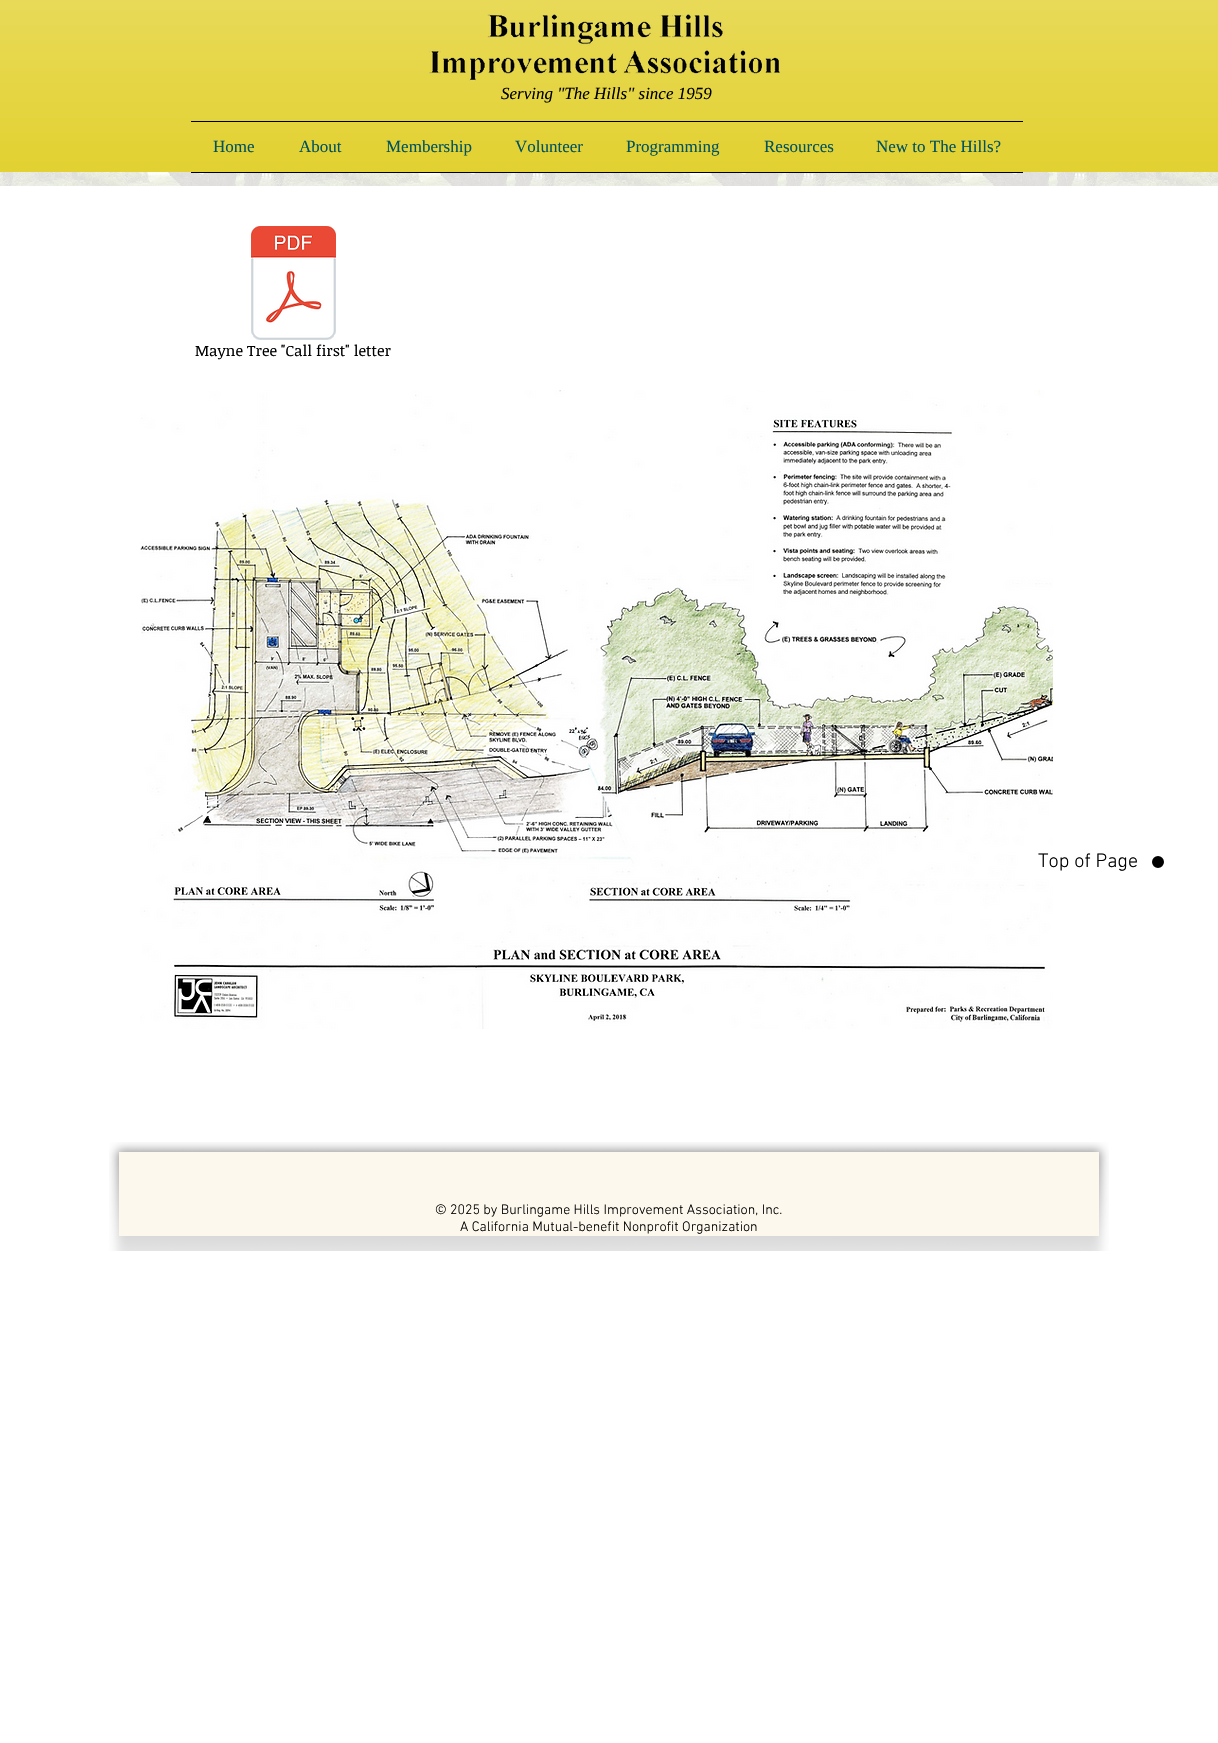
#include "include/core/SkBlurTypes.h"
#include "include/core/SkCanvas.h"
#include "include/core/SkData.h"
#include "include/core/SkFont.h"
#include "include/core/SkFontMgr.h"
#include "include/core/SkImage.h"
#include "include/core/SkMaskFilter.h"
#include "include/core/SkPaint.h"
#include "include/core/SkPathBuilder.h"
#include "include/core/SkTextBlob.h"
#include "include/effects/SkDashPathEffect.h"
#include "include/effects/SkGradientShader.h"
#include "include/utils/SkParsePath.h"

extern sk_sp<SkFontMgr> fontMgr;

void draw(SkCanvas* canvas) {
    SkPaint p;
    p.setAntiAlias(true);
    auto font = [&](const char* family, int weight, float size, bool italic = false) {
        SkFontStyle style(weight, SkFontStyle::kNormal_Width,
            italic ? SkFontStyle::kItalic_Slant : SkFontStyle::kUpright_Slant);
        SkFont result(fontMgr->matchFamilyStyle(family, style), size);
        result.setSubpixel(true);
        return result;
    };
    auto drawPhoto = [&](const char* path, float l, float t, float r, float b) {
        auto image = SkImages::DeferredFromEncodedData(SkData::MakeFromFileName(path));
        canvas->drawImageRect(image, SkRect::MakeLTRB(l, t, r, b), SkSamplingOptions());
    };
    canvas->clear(0xFFFFFFFF);
    p.setColor(0xFFE0CD1D);
    canvas->drawRect(SkRect::MakeLTRB(0, 0, 1218, 172), p);
    drawPhoto("media/1.png", 0, 0, 1218, 172);
    drawPhoto("media/2.png", 429, 14, 781, 81);
    auto font1 = font("Liberation Serif", 400, 17, true);
    p.setColor(0xFF000000);
    canvas->drawString("Serving \"The Hills\" since 1959", 501, 99, font1, p);
    canvas->drawRect(SkRect::MakeLTRB(191, 121, 1023, 122), p);
    drawPhoto("media/8.png", 0, 172, 1218, 186);
    canvas->drawRect(SkRect::MakeLTRB(191, 172, 1023, 173), p);
    auto font2 = font("Liberation Serif", 400, 17);
    p.setColor(0xFF00535F);
    {
        const struct { const char* s; float x, y; } items[] = {
            {"Home", 213, 152},
            {"About", 299, 152},
            {"Membership", 386, 152},
            {"Volunteer", 515, 152},
            {"Programming", 626, 152},
            {"Resources", 764, 152},
            {"New to The Hills?", 876, 152},
        };
        for (auto [s, x, y] : items) {
            canvas->drawString(s, x, y, font2, p);
        }
    }
    drawPhoto("media/3.png", 251, 226, 336, 340);
    auto font3 = font("Noticia Text", 400, 15);
    p.setColor(0xFF000000);
    canvas->drawString("Mayne Tree \"Call first\" letter", 195, 356, font3, p);
    drawPhoto("media/4.png", 140, 390, 1053, 1029);
    auto font4 = font("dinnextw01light", 300, 20);
    canvas->drawString("Top of Page", 1038, 867, font4, p);
    canvas->drawCircle(1158, 862, 5, p);
    p.setStyle(SkPaint::kStroke_Style);
    p.setStrokeWidth(2);
    canvas->drawCircle(1158, 862, 5, p);
    drawPhoto("media/5.png", 109, 1142, 154, 1251);
    drawPhoto("media/6.png", 154, 1142, 1064, 1251);
    drawPhoto("media/7.png", 1064, 1142, 1109, 1251);
    p.setStyle(SkPaint::kFill_Style);
    p.setColor(0xFFFCF8ED);
    canvas->drawRect(SkRect::MakeLTRB(119, 1152, 1099, 1236), p);
    auto font5 = font("dinnextw01light", 300, 14);
    p.setColor(0xFF000000);
    canvas->drawString("© 2025 by Burlingame Hills Improvement Association, Inc.", 435, 1214, font5, p);
    canvas->drawString("A California Mutual-benefit Nonprofit Organization", 460, 1231, font5, p);
}
